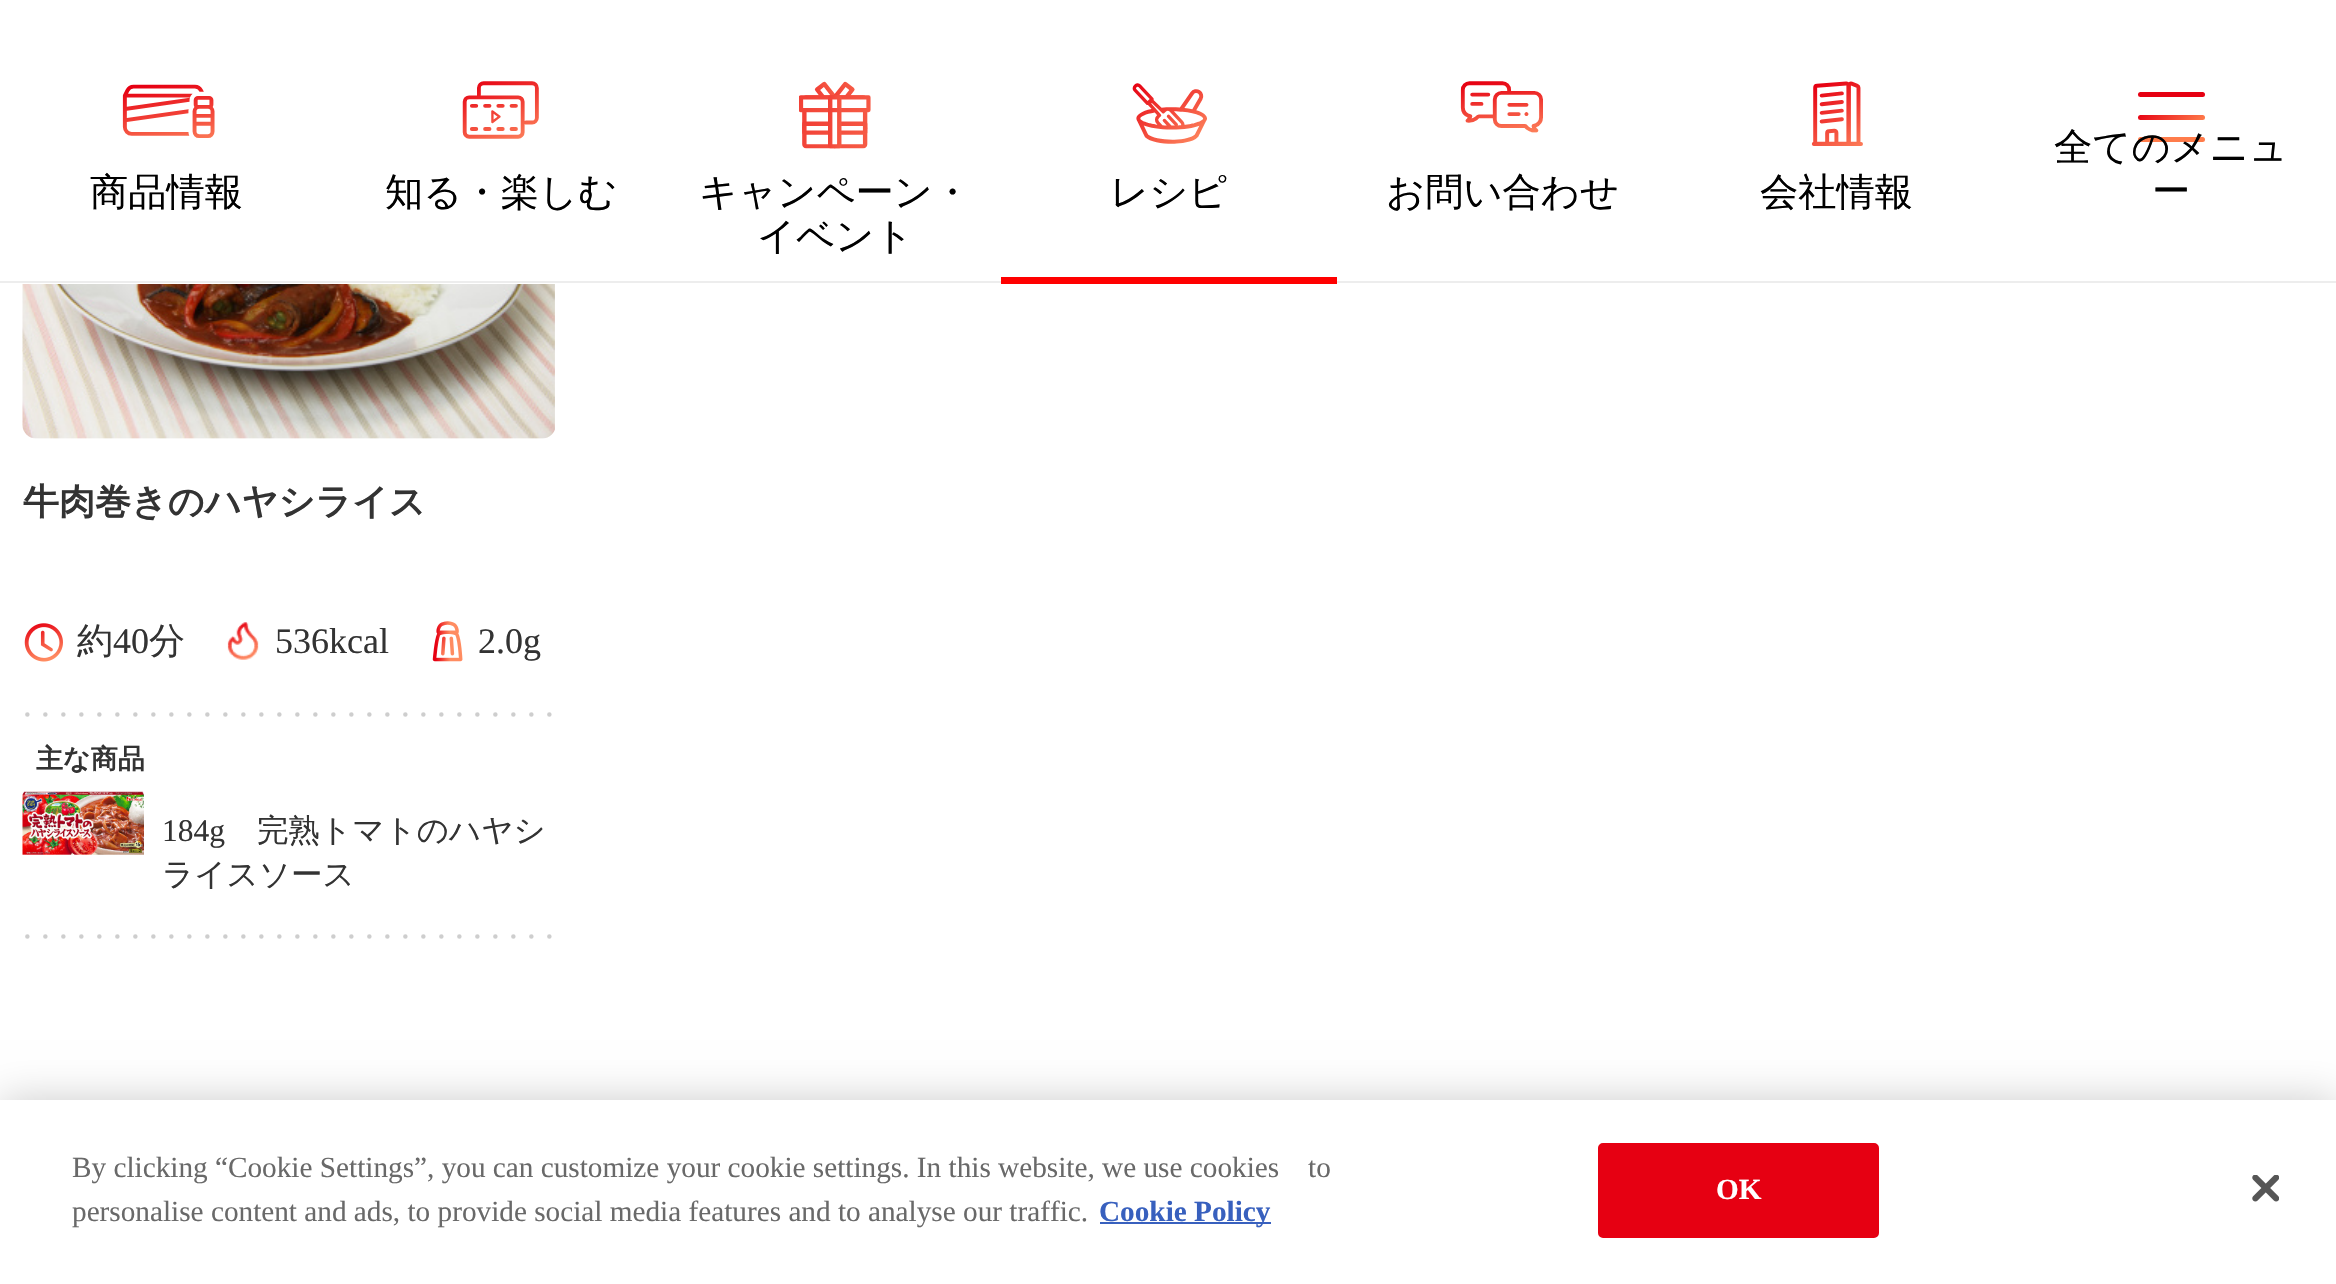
#include "include/core/SkBlurTypes.h"
#include "include/core/SkCanvas.h"
#include "include/core/SkData.h"
#include "include/core/SkFont.h"
#include "include/core/SkFontMgr.h"
#include "include/core/SkImage.h"
#include "include/core/SkMaskFilter.h"
#include "include/core/SkPaint.h"
#include "include/core/SkPathBuilder.h"
#include "include/core/SkTextBlob.h"
#include "include/effects/SkDashPathEffect.h"
#include "include/effects/SkGradientShader.h"
#include "include/utils/SkParsePath.h"

extern sk_sp<SkFontMgr> fontMgr;

void draw(SkCanvas* canvas) {
    SkPaint p;
    p.setAntiAlias(true);
    auto font = [&](const char* family, int weight, float size, bool italic = false) {
        SkFontStyle style(weight, SkFontStyle::kNormal_Width,
            italic ? SkFontStyle::kItalic_Slant : SkFontStyle::kUpright_Slant);
        SkFont result(fontMgr->matchFamilyStyle(family, style), size);
        result.setSubpixel(true);
        return result;
    };
    auto drawPhoto = [&](const char* path, float l, float t, float r, float b) {
        auto image = SkImages::DeferredFromEncodedData(SkData::MakeFromFileName(path));
        canvas->drawImageRect(image, SkRect::MakeLTRB(l, t, r, b), SkSamplingOptions());
    };
    canvas->clear(0xFFFFFFFF);
    p.setColor(0xFFEDEDED);
    canvas->drawRect(SkRect::MakeLTRB(0, 281, 2336, 283), p);
    drawPhoto("media/1.png", 122, 84, 215, 138);
    auto font1 = font("WenQuanYi Zen Hei", 500, 38.25f);
    p.setColor(0xFF000000);
    canvas->drawString("商品情報", 90, 205, font1, p);
    drawPhoto("media/2.png", 462, 81, 539, 139);
    canvas->drawString("知る・楽しむ", 385, 205, font1, p);
    drawPhoto("media/3.png", 799, 81, 871, 149);
    canvas->drawString("キャンペーン・", 699, 205, font1, p);
    canvas->drawString("イベント", 757, 249, font1, p);
    p.setColor(0xFFFF0000);
    canvas->drawRect(SkRect::MakeLTRB(1001, 277, 1337, 284), p);
    drawPhoto("media/4.png", 1132, 83, 1207, 144);
    p.setColor(0xFF000000);
    canvas->drawString("レシピ", 1110, 205, font1, p);
    drawPhoto("media/5.png", 1460, 81, 1543, 133);
    canvas->drawString("お問い合わせ", 1386, 205, font1, p);
    drawPhoto("media/6.png", 1811, 81, 1863, 146);
    canvas->drawString("会社情報", 1760, 205, font1, p);
    p.setColor(0xFFE60012);
    canvas->drawRoundRect(SkRect::MakeLTRB(2138, 92, 2205, 97), 2.5f, 2.5f, p);
    {
        const SkColor colors[] = {0xFFE60012, 0xFFFF7C4B};
        const float stops[] = {0, 1};
        const SkPoint ends[] = {{2150, 99}, {2192, 135}};
        p.setShader(SkGradientShader::MakeLinear(ends, colors, stops, 2, SkTileMode::kClamp));
        p.setAlpha(255);
    }
    canvas->drawRoundRect(SkRect::MakeLTRB(2138, 115, 2205, 120), 2.5f, 2.5f, p);
    p.setShader(nullptr);
    p.setColor(0xFFFF7C4B);
    canvas->drawRoundRect(SkRect::MakeLTRB(2138, 137, 2205, 142), 2.5f, 2.5f, p);
    p.setColor(0xFF000000);
    canvas->drawString("全てのメニュ", 2054, 160, font1, p);
    canvas->drawString("ー", 2152, 204, font1, p);
    drawPhoto("media/7.png", 22, 284, 555, 439);
    auto font2 = font("WenQuanYi Zen Hei", 700, 36);
    p.setColor(0xFF333333);
    canvas->drawString("牛肉巻きのハヤシライス", 23, 514, font2, p);
    drawPhoto("media/8.png", 24, 623, 63, 662);
    auto font3 = font("WenQuanYi Zen Hei", 500, 36);
    canvas->drawString("約", 77, 653, font3, p);
    auto font4 = font("Liberation Serif", 400, 36);
    canvas->drawString("40", 113, 653, font4, p);
    canvas->drawString("分", 149, 653, font3, p);
    drawPhoto("media/9.png", 227, 622, 259, 660);
    canvas->drawString("536kcal", 275, 653, font4, p);
    drawPhoto("media/10.png", 432, 621, 463, 662);
    canvas->drawString("2.0g", 478, 653, font4, p);
    drawPhoto("media/11.png", 25, 712, 552, 717);
    auto font5 = font("WenQuanYi Zen Hei", 700, 27);
    canvas->drawString("主な商品", 36, 768, font5, p);
    drawPhoto("media/12.png", 22, 791, 144, 855);
    auto font6 = font("Liberation Serif", 400, 31.5f);
    canvas->drawString("184g", 162, 841, font6, p);
    auto font7 = font("WenQuanYi Zen Hei", 500, 31.5f);
    canvas->drawString("完熟トマトのハヤシ", 257, 841, font7, p);
    canvas->drawString("ライスソース", 162, 885, font7, p);
    drawPhoto("media/11.png", 25, 934, 552, 939);
    p.setColor(0x33000000);
    p.setMaskFilter(SkMaskFilter::MakeBlur(kNormal_SkBlurStyle, 20));
    canvas->drawRect(SkRect::MakeLTRB(0, 1100, 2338, 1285), p);
    p.setMaskFilter(nullptr);
    p.setColor(0xFFFFFFFF);
    canvas->drawRect(SkRect::MakeLTRB(0, 1100, 2336, 1284), p);
    auto font8 = font("Liberation Serif", 400, 29.25f);
    p.setColor(0xFF696969);
    {
        const struct { const char* s; float x, y; } items[] = {
            {"By clicking “Cookie Settings”, you can customize your cookie settings. In this website, we use cookies", 72, 1177},
            {"to", 1308, 1177},
            {"personalise content and ads, to provide social media features and to analyse our traffic.", 72, 1221},
        };
        for (auto [s, x, y] : items) {
            canvas->drawString(s, x, y, font8, p);
        }
    }
    p.setColor(0xFF3860BE);
    canvas->drawRect(SkRect::MakeLTRB(1100, 1222, 1271, 1224), p);
    auto font9 = font("Liberation Serif", 700, 29.25f);
    canvas->drawString("Cookie Policy", 1099, 1221, font9, p);
    p.setColor(0xFFE60012);
    canvas->drawRoundRect(SkRect::MakeLTRB(1599, 1144, 1878, 1237), 4, 4, p);
    p.setStyle(SkPaint::kStroke_Style);
    p.setStrokeWidth(2);
    canvas->drawRoundRect(SkRect::MakeLTRB(1599, 1144, 1878, 1237), 4, 4, p);
    p.setStyle(SkPaint::kFill_Style);
    p.setColor(0xFFFFFFFF);
    canvas->drawString("OK", 1716, 1199, font9, p);
    drawPhoto("media/13.png", 2252, 1175, 2279, 1202);
}
